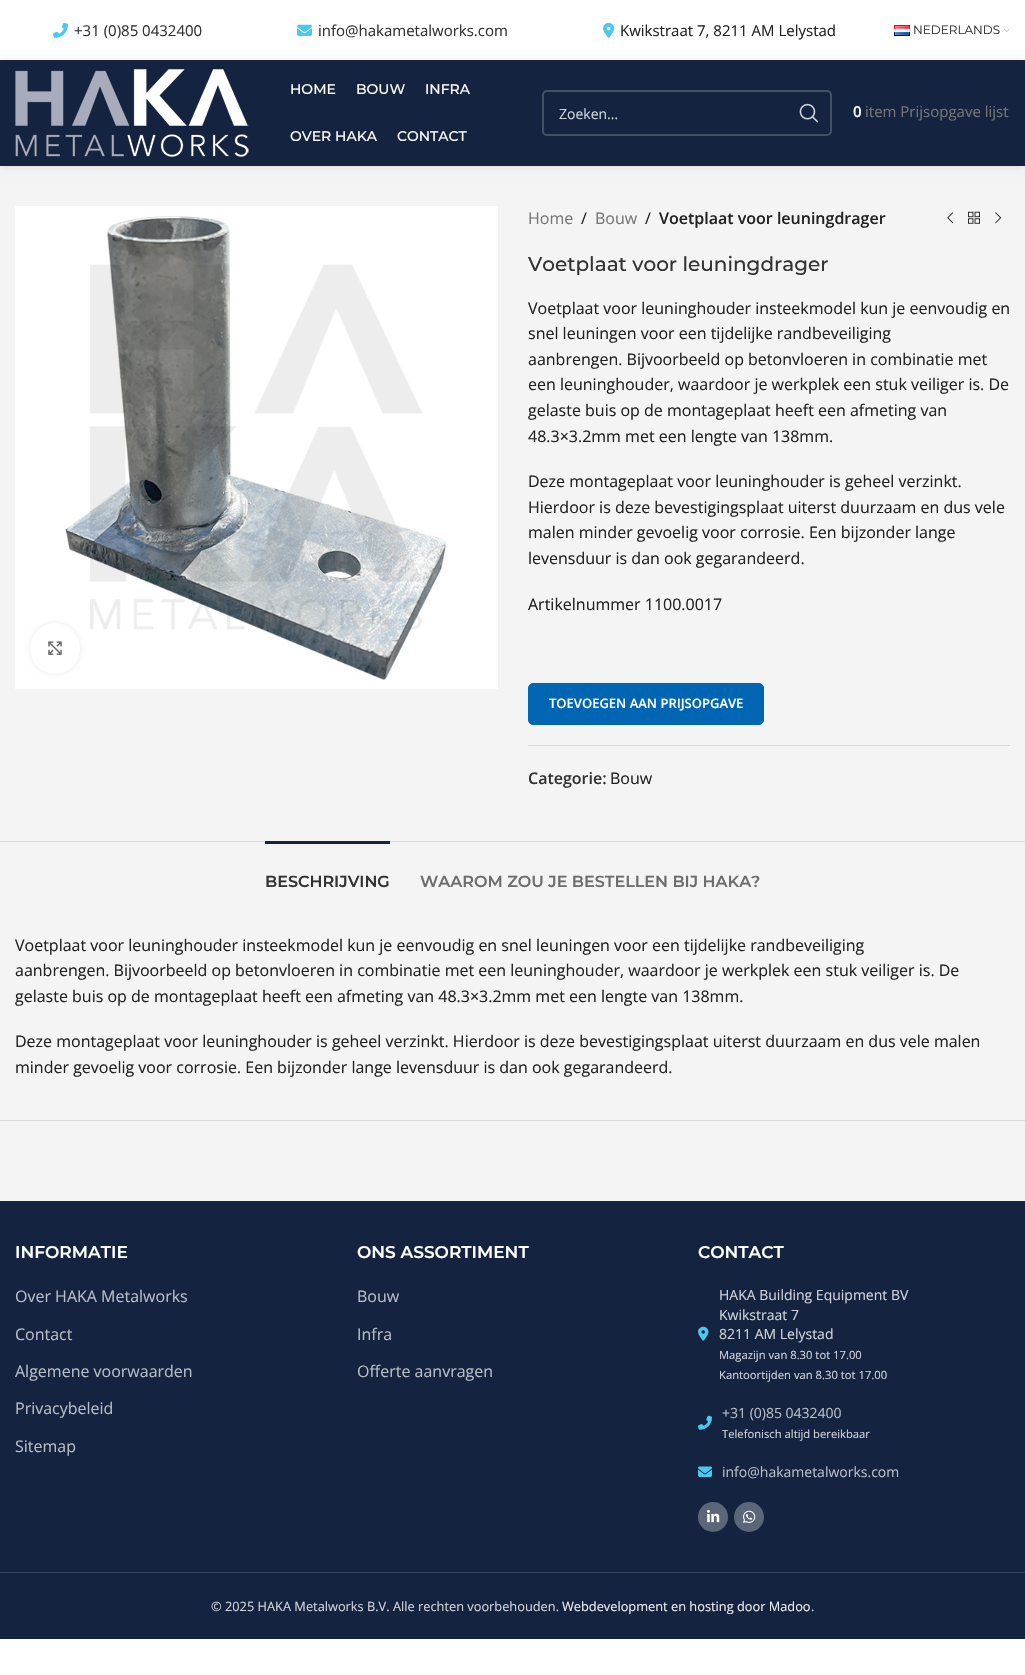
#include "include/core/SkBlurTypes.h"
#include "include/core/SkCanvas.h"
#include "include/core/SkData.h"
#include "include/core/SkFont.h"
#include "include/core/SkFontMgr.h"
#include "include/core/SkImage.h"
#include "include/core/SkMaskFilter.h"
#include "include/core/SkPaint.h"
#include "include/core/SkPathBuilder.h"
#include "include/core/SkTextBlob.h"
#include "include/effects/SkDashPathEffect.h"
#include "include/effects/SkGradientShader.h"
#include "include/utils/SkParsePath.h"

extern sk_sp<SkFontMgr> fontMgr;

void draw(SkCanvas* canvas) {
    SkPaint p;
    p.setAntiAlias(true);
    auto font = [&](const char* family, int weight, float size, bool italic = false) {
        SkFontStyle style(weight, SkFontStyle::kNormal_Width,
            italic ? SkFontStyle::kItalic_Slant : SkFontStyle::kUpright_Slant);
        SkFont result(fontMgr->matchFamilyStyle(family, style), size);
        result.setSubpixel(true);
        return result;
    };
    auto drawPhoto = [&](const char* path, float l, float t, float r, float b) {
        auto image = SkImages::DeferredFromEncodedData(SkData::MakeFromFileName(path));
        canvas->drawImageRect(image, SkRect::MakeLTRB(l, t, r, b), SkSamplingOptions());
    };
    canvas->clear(0xFFFFFFFF);
    drawPhoto("media/1.png", 53, 22, 68, 38);
    auto font1 = font("Open Sans", 400, 15);
    p.setColor(0xFF333333);
    canvas->drawString("+31 (0)85 0432400", 74, 36, font1, p);
    drawPhoto("media/2.png", 297, 24, 312, 36);
    canvas->drawString("info@hakametalworks.com", 318, 36, font1, p);
    drawPhoto("media/3.png", 603, 22, 615, 38);
    p.setColor(0xFF222222);
    canvas->drawString("Kwikstraat 7, 8211 AM Lelystad", 620, 36, font1, p);
    drawPhoto("media/4.png", 894, 25, 910, 36);
    auto font2 = font("Montserrat", 400, 12);
    p.setColor(0xFF333333);
    canvas->drawString("NEDERLANDS", 913, 34, font2, p);
    drawPhoto("media/5.png", 1004, 29, 1010, 32);
    p.setColor(0xFFF4F4F4);
    canvas->drawRect(SkRect::MakeLTRB(0, 166, 1025, 1201), p);
    p.setColor(0x1A000000);
    p.setMaskFilter(SkMaskFilter::MakeBlur(kNormal_SkBlurStyle, 4));
    canvas->drawRect(SkRect::MakeLTRB(0, 61, 1025, 167), p);
    p.setMaskFilter(nullptr);
    p.setColor(0xFF142440);
    canvas->drawRect(SkRect::MakeLTRB(0, 60, 1025, 166), p);
    drawPhoto("media/6.png", 15, 69, 249, 157);
    auto font3 = font("Montserrat", 500, 14);
    p.setColor(0xFFFFFFFF);
    {
        const struct { const char* s; float x, y; } items[] = {
            {"HOME", 290, 94},
            {"BOUW", 356, 94},
            {"INFRA", 425, 94},
            {"OVER HAKA", 290, 141},
            {"CONTACT", 397, 141},
        };
        for (auto [s, x, y] : items) {
            canvas->drawString(s, x, y, font3, p);
        }
    }
    p.setStyle(SkPaint::kStroke_Style);
    p.setStrokeWidth(2);
    p.setColor(0xFF435066);
    canvas->drawRoundRect(SkRect::MakeLTRB(543, 91, 831, 135), 4, 4, p);
    auto font4 = font("Open Sans", 400, 14);
    p.setStyle(SkPaint::kFill_Style);
    p.setColor(0xFFD0D3D9);
    canvas->drawString("Zoeken...", 559, 119, font4, p);
    drawPhoto("media/7.png", 799, 103, 819, 123);
    auto font5 = font("Open Sans", 600, 15);
    p.setColor(0xFFFFFFFF);
    canvas->drawString("0", 853, 117, font5, p);
    p.setColor(0xFF767676);
    canvas->drawString("item Prijsopgave lijst", 865, 117, font1, p);
    drawPhoto("media/8.png", 15, 206, 498, 689);
    p.setColor(0x14000000);
    p.setMaskFilter(SkMaskFilter::MakeBlur(kNormal_SkBlurStyle, 2.5f));
    canvas->drawRoundRect(SkRect::MakeLTRB(30, 623, 80, 674), 25, 25, p);
    p.setMaskFilter(nullptr);
    p.setColor(0xFFFFFFFF);
    canvas->drawRoundRect(SkRect::MakeLTRB(30, 623, 80, 674), 25, 25, p);
    drawPhoto("media/9.png", 48, 641, 62, 655);
    auto font6 = font("Open Sans", 400, 16);
    p.setColor(0xFF767676);
    canvas->drawString("Home", 528, 224, font6, p);
    p.setColor(0xFF222222);
    canvas->drawString("/", 581, 224, font6, p);
    p.setColor(0xFF767676);
    canvas->drawString("Bouw", 595, 224, font6, p);
    p.setColor(0xFF222222);
    canvas->drawString("/", 645, 224, font6, p);
    auto font7 = font("Open Sans", 600, 16);
    canvas->drawString("Voetplaat voor leuningdrager", 659, 224, font7, p);
    drawPhoto("media/10.png", 947, 212, 954, 224);
    drawPhoto("media/11.png", 968, 211, 980, 224);
    drawPhoto("media/12.png", 995, 212, 1002, 224);
    auto font8 = font("Montserrat", 500, 20);
    p.setColor(0xFF333333);
    canvas->drawString("Voetplaat voor leuningdrager", 528, 271, font8, p);
    p.setColor(0xFF222222);
    {
        const struct { const char* s; float x, y; } items[] = {
            {"Voetplaat voor leuninghouder insteekmodel kun je eenvoudig en", 528, 314},
            {"snel leuningen voor een tijdelijke randbeveiliging", 528, 339},
            {"aanbrengen. Bijvoorbeeld op betonvloeren in combinatie met", 528, 365},
            {"een leuninghouder, waardoor je werkplek een stuk veiliger is. De", 528, 390},
            {"gelaste buis op de montageplaat heeft een afmeting van", 528, 416},
            {"48.3×3.2mm met een lengte van 138mm.", 528, 442},
            {"Deze montageplaat voor leuninghouder is geheel verzinkt.", 528, 487},
            {"Hierdoor is deze bevestigingsplaat uiterst duurzaam en dus vele", 528, 513},
            {"malen minder gevoelig voor corrosie. Een bijzonder lange", 528, 538},
            {"levensduur is dan ook gegarandeerd.", 528, 564},
            {"Artikelnummer 1100.0017", 528, 610},
        };
        for (auto [s, x, y] : items) {
            canvas->drawString(s, x, y, font6, p);
        }
    }
    p.setColor(0xFF0066B4);
    canvas->drawRoundRect(SkRect::MakeLTRB(528.5f, 683.5f, 763.5f, 724.5f), 4.5f, 4.5f, p);
    p.setStyle(SkPaint::kStroke_Style);
    p.setStrokeWidth(1);
    canvas->drawRoundRect(SkRect::MakeLTRB(528.5f, 683.5f, 763.5f, 724.5f), 4.5f, 4.5f, p);
    auto font9 = font("Open Sans", 600, 13);
    p.setStyle(SkPaint::kFill_Style);
    p.setColor(0xFFFFFFFF);
    canvas->drawString("TOEVOEGEN AAN PRIJSOPGAVE", 549, 708, font9, p);
    p.setColor(0xFFDADADA);
    canvas->drawRect(SkRect::MakeLTRB(528, 745, 1010, 746), p);
    p.setColor(0xFF333333);
    canvas->drawString("Categorie:", 528, 784, font7, p);
    p.setColor(0xFF222222);
    canvas->drawString("Bouw", 610, 784, font6, p);
    {
        const struct { float l, t, r, b; SkColor color; } items[] = {
            {0, 841, 1025, 842, 0xFFDADADA},
            {0, 1120, 1025, 1121, 0xFFDADADA},
            {265, 841, 390, 844, 0xFF142440},
        };
        for (auto [l, t, r, b, color] : items) {
            p.setColor(color);
            canvas->drawRect(SkRect::MakeLTRB(l, t, r, b), p);
        }
    }
    auto font10 = font("Montserrat", 600, 16);
    p.setColor(0xFF333333);
    canvas->drawString("BESCHRIJVING", 265, 887, font10, p);
    p.setColor(0xFF6D6D6D);
    canvas->drawString("WAAROM ZOU JE BESTELLEN BIJ HAKA?", 420, 887, font10, p);
    p.setColor(0xFF222222);
    {
        const struct { const char* s; float x, y; } items[] = {
            {"Voetplaat voor leuninghouder insteekmodel kun je eenvoudig en snel leuningen voor een tijdelijke randbeveiliging", 15, 951},
            {"aanbrengen. Bijvoorbeeld op betonvloeren in combinatie met een leuninghouder, waardoor je werkplek een stuk veiliger is. De", 15, 976},
            {"gelaste buis op de montageplaat heeft een afmeting van 48.3×3.2mm met een lengte van 138mm.", 15, 1002},
            {"Deze montageplaat voor leuninghouder is geheel verzinkt. Hierdoor is deze bevestigingsplaat uiterst duurzaam en dus vele malen", 15, 1047},
            {"minder gevoelig voor corrosie. Een bijzonder lange levensduur is dan ook gegarandeerd.", 15, 1073},
        };
        for (auto [s, x, y] : items) {
            canvas->drawString(s, x, y, font6, p);
        }
    }
    p.setColor(0xFF142440);
    canvas->drawRect(SkRect::MakeLTRB(0, 1201, 1025, 1639), p);
    auto font11 = font("Montserrat", 600, 17);
    p.setColor(0xFFFFFFFF);
    canvas->drawString("INFORMATIE", 15, 1258, font11, p);
    p.setColor(0xFFB9BDC6);
    {
        const struct { const char* s; float x, y; } items[] = {
            {"Over HAKA Metalworks", 15, 1302},
            {"Contact", 15, 1340},
            {"Algemene voorwaarden", 15, 1377},
            {"Privacybeleid", 15, 1414},
            {"Sitemap", 15, 1452},
        };
        for (auto [s, x, y] : items) {
            canvas->drawString(s, x, y, font6, p);
        }
    }
    p.setColor(0xFFFFFFFF);
    canvas->drawString("ONS ASSORTIMENT", 357, 1258, font11, p);
    p.setColor(0xFFB9BDC6);
    {
        const struct { const char* s; float x, y; } items[] = {
            {"Bouw", 357, 1302},
            {"Infra", 357, 1340},
            {"Offerte aanvragen", 357, 1377},
        };
        for (auto [s, x, y] : items) {
            canvas->drawString(s, x, y, font6, p);
        }
    }
    p.setColor(0xFFFFFFFF);
    canvas->drawString("CONTACT", 698, 1258, font11, p);
    drawPhoto("media/13.png", 698, 1326, 709, 1341);
    p.setColor(0xFFD0D3D9);
    {
        const struct { const char* s; float x, y; } items[] = {
            {"HAKA Building Equipment BV", 719, 1300},
            {"Kwikstraat 7", 719, 1320},
            {"8211 AM Lelystad", 719, 1339},
        };
        for (auto [s, x, y] : items) {
            canvas->drawString(s, x, y, font4, p);
        }
    }
    auto font12 = font("Open Sans", 400, 11.25f);
    canvas->drawString("Magazijn van 8.30 tot 17.00", 719, 1359, font12, p);
    canvas->drawString("Kantoortijden van 8.30 tot 17.00", 719, 1379, font12, p);
    drawPhoto("media/14.png", 698, 1415, 712, 1430);
    p.setColor(0xFFB9BDC6);
    canvas->drawString("+31 (0)85 0432400", 722, 1418, font4, p);
    p.setColor(0xFFD0D3D9);
    canvas->drawString("Telefonisch altijd bereikbaar", 722, 1438, font12, p);
    drawPhoto("media/15.png", 698, 1466, 712, 1477);
    p.setColor(0xFFB9BDC6);
    canvas->drawString("info@hakametalworks.com", 722, 1477, font4, p);
    p.setColor(0xFF5B6679);
    canvas->drawCircle(713, 1517, 15, p);
    drawPhoto("media/16.png", 707, 1509, 720, 1523);
    canvas->drawCircle(749, 1517, 15, p);
    drawPhoto("media/17.png", 743, 1510, 756, 1523);
    p.setColor(0xFF37455D);
    canvas->drawRect(SkRect::MakeLTRB(0, 1572, 1025, 1573), p);
    auto font13 = font("Open Sans", 400, 12.8f);
    p.setColor(0xFFD0D3D9);
    canvas->drawString("© 2025 HAKA Metalworks B.V. Alle rechten voorbehouden.", 211, 1611, font13, p);
    p.setColor(0xFFE8E9EC);
    canvas->drawString("Webdevelopment en hosting door Madoo", 562, 1611, font13, p);
    p.setColor(0xFFD0D3D9);
    canvas->drawString(".", 811, 1611, font13, p);
}
